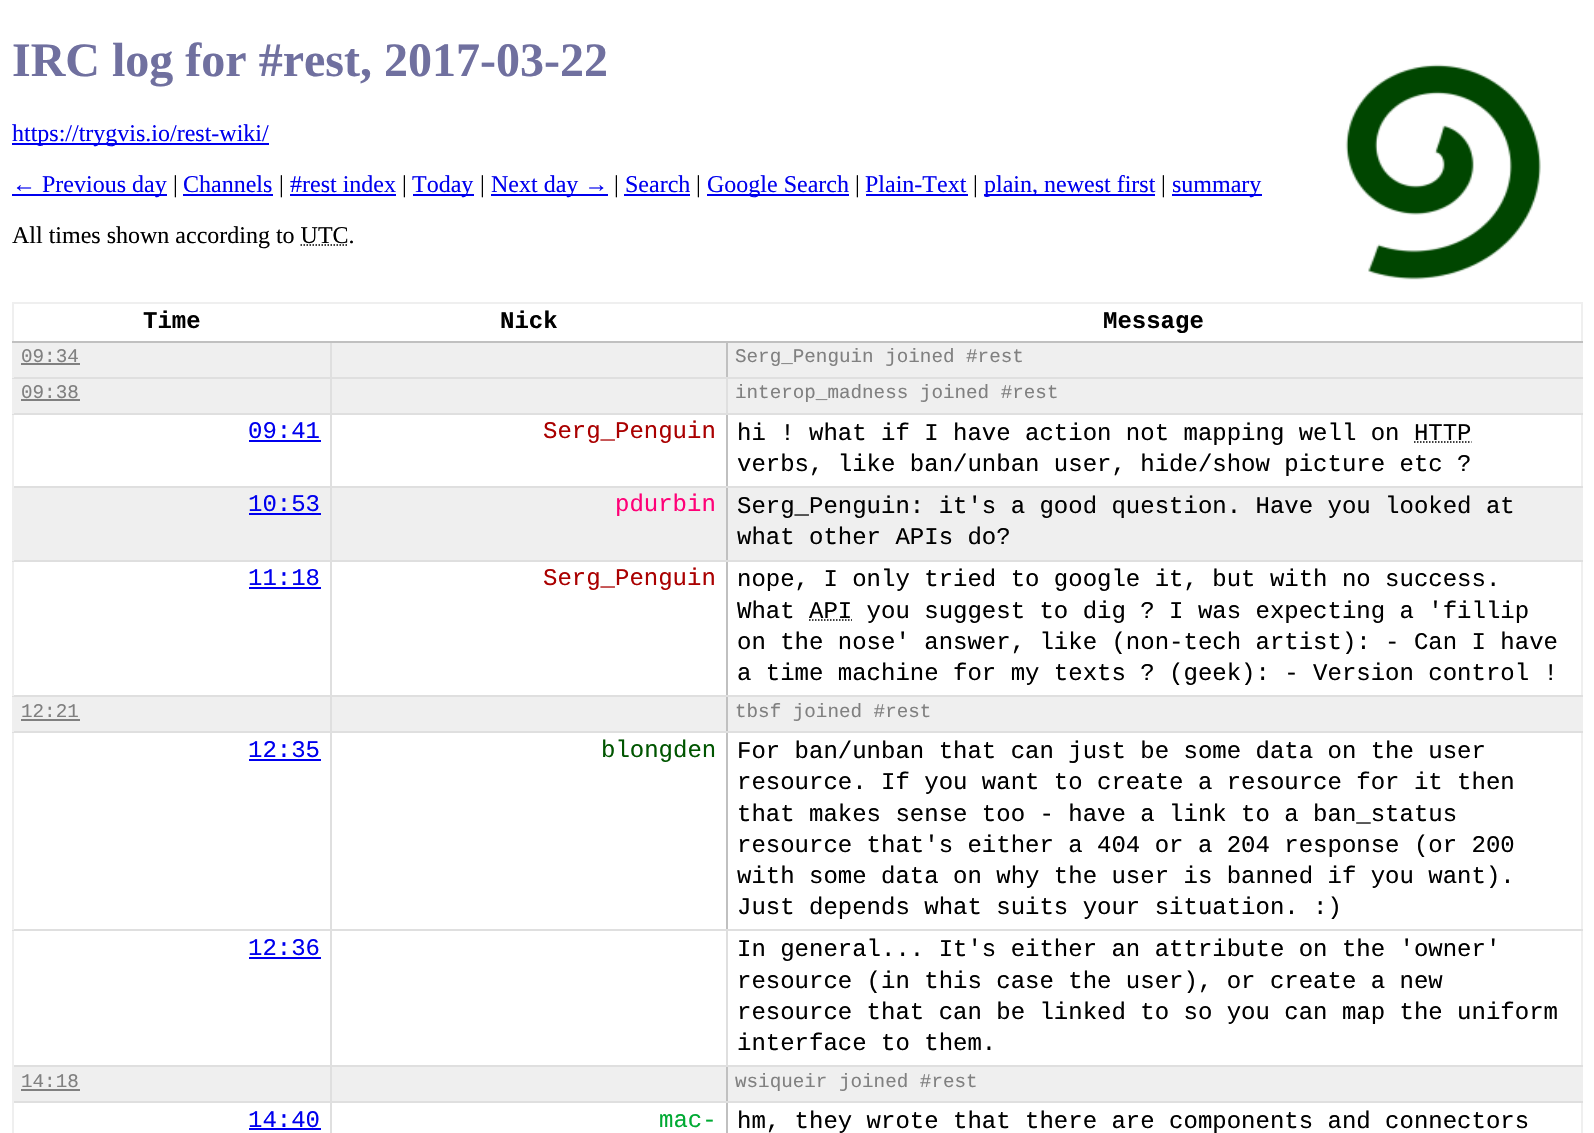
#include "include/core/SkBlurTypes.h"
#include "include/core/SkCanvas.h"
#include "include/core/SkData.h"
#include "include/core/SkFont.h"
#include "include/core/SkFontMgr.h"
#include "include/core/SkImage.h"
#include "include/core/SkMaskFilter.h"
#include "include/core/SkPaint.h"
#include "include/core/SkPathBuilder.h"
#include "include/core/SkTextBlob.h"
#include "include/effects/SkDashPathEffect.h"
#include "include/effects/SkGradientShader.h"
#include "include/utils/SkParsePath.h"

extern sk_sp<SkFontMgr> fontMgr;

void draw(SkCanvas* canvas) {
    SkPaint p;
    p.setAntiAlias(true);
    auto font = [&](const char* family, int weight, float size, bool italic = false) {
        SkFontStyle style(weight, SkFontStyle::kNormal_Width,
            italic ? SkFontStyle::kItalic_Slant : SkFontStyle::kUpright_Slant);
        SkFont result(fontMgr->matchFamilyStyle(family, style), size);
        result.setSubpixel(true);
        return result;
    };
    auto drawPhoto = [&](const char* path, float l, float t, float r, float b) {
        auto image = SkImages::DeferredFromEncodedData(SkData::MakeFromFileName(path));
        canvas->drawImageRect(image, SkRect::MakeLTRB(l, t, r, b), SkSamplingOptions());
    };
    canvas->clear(0xFFFFFFFF);
    auto font1 = font("Liberation Serif", 700, 48);
    p.setColor(0xFF70709F);
    canvas->drawString("IRC log for #rest, 2017-03-22", 12, 76, font1, p);
    drawPhoto("media/1.png", 1345, 64, 1541, 280);
    p.setColor(0xFF0000EE);
    canvas->drawRect(SkRect::MakeLTRB(12, 143, 269, 145), p);
    auto font2 = font("Liberation Serif", 400, 24);
    canvas->drawString("https://trygvis.io/rest-wiki/", 12, 141, font2, p);
    canvas->drawRect(SkRect::MakeLTRB(12, 194, 167, 196), p);
    canvas->drawString("← Previous day", 12, 192, font2, p);
    p.setColor(0xFF000000);
    canvas->drawString("|", 173, 192, font2, p);
    p.setColor(0xFF0000EE);
    canvas->drawString("Channels", 183, 192, font2, p);
    canvas->drawRect(SkRect::MakeLTRB(183, 194, 273, 196), p);
    p.setColor(0xFF000000);
    canvas->drawString("|", 279, 192, font2, p);
    p.setColor(0xFF0000EE);
    canvas->drawString("#rest index", 290, 192, font2, p);
    canvas->drawRect(SkRect::MakeLTRB(290, 194, 396, 196), p);
    p.setColor(0xFF000000);
    canvas->drawString("|", 402, 192, font2, p);
    p.setColor(0xFF0000EE);
    canvas->drawRect(SkRect::MakeLTRB(413, 194, 474, 196), p);
    canvas->drawString("Today", 412, 192, font2, p);
    p.setColor(0xFF000000);
    canvas->drawString("|", 480, 192, font2, p);
    p.setColor(0xFF0000EE);
    canvas->drawRect(SkRect::MakeLTRB(491, 194, 608, 196), p);
    canvas->drawString("Next day →", 491, 192, font2, p);
    p.setColor(0xFF000000);
    canvas->drawString("|", 614, 192, font2, p);
    p.setColor(0xFF0000EE);
    canvas->drawString("Search", 625, 192, font2, p);
    canvas->drawRect(SkRect::MakeLTRB(624, 194, 690, 196), p);
    p.setColor(0xFF000000);
    canvas->drawString("|", 696, 192, font2, p);
    p.setColor(0xFF0000EE);
    canvas->drawRect(SkRect::MakeLTRB(707, 194, 849, 196), p);
    canvas->drawString("Google Search", 707, 192, font2, p);
    p.setColor(0xFF000000);
    canvas->drawString("|", 855, 192, font2, p);
    p.setColor(0xFF0000EE);
    canvas->drawString("Plain-Text", 865, 192, font2, p);
    canvas->drawRect(SkRect::MakeLTRB(866, 194, 968, 196), p);
    p.setColor(0xFF000000);
    canvas->drawString("|", 973, 192, font2, p);
    p.setColor(0xFF0000EE);
    canvas->drawRect(SkRect::MakeLTRB(984, 194, 1155, 196), p);
    canvas->drawString("plain, newest first", 984, 192, font2, p);
    p.setColor(0xFF000000);
    canvas->drawString("|", 1161, 192, font2, p);
    p.setColor(0xFF0000EE);
    canvas->drawRect(SkRect::MakeLTRB(1172, 194, 1262, 196), p);
    canvas->drawString("summary", 1172, 192, font2, p);
    p.setColor(0xFF000000);
    canvas->drawString("All times shown according to UTC.", 12, 243, font2, p);
    p.setStyle(SkPaint::kStroke_Style);
    p.setStrokeWidth(1.5f);
    p.setPathEffect(SkDashPathEffect::Make({{1.5f, 1.5f}}, 0));
    canvas->drawPath(SkPathBuilder().moveTo(300.5f, 245).lineTo(348.5f, 245).detach(), p);
    p.setPathEffect(nullptr);
    p.setStyle(SkPaint::kFill_Style);
    {
        const struct { float l, t, r, b; SkColor color; } items[] = {
            {12, 302, 1583, 304, 0xFFEFEFEF},
            {1581, 302, 1583, 341, 0xFFEFEFEF},
            {12, 302, 14, 341, 0xFFEFEFEF},
        };
        for (auto [l, t, r, b, color] : items) {
            p.setColor(color);
            canvas->drawRect(SkRect::MakeLTRB(l, t, r, b), p);
        }
    }
    auto font3 = font("Liberation Mono", 700, 24);
    p.setColor(0xFF000000);
    canvas->drawString("Time", 143, 328, font3, p);
    canvas->drawString("Nick", 500, 328, font3, p);
    {
        const struct { float l, t, r, b; SkColor color; } items[] = {
            {14, 343, 1581, 377, 0xFFEFEFEF},
            {14, 379, 1581, 413, 0xFFEFEFEF},
            {330, 413, 728, 415, 0xFFDFDFDF},
            {14, 488, 1581, 560, 0xFFEFEFEF},
            {14, 697, 1581, 731, 0xFFEFEFEF},
            {330, 1065, 728, 1067, 0xFFDFDFDF},
            {14, 1067, 1581, 1101, 0xFFEFEFEF},
            {726, 1101, 728, 1133, 0xFFC0C0C0},
            {1581, 341, 1583, 1133, 0xFFEFEFEF},
            {726, 1101, 1583, 1103, 0xFFDFDFDF},
            {726, 1065, 728, 1103, 0xFFC0C0C0},
            {726, 1065, 1583, 1067, 0xFFDFDFDF},
            {726, 929, 728, 1067, 0xFFDFDFDF},
            {726, 929, 1583, 931, 0xFFDFDFDF},
            {726, 731, 728, 930, 0xFFC0C0C0},
            {726, 731, 1583, 733, 0xFFDFDFDF},
            {726, 695, 728, 732, 0xFFC0C0C0},
            {726, 695, 1583, 697, 0xFFDFDFDF},
            {726, 560, 728, 696, 0xFFC0C0C0},
            {726, 560, 1583, 562, 0xFFDFDFDF},
            {726, 486, 728, 561, 0xFFC0C0C0},
            {726, 486, 1583, 488, 0xFFDFDFDF},
            {726, 413, 728, 488, 0xFFC0C0C0},
            {726, 413, 1583, 415, 0xFFDFDFDF},
            {726, 377, 728, 414, 0xFFDFDFDF},
            {726, 377, 1583, 379, 0xFFDFDFDF},
            {726, 341, 728, 378, 0xFFC0C0C0},
            {330, 1101, 332, 1133, 0xFFDFDFDF},
            {330, 1101, 728, 1103, 0xFFDFDFDF},
            {330, 929, 332, 1103, 0xFFDFDFDF},
            {330, 929, 728, 931, 0xFFDFDFDF},
            {330, 731, 332, 930, 0xFFDFDFDF},
            {330, 731, 728, 733, 0xFFDFDFDF},
            {330, 695, 332, 732, 0xFFDFDFDF},
            {330, 695, 728, 697, 0xFFDFDFDF},
            {330, 560, 332, 696, 0xFFDFDFDF},
            {330, 560, 728, 562, 0xFFDFDFDF},
            {330, 486, 332, 561, 0xFFDFDFDF},
            {330, 486, 728, 488, 0xFFDFDFDF},
            {330, 377, 332, 488, 0xFFDFDFDF},
            {330, 377, 728, 379, 0xFFDFDFDF},
            {330, 341, 332, 378, 0xFFDFDFDF},
            {12, 1101, 14, 1133, 0xFFEFEFEF},
            {12, 1101, 332, 1103, 0xFFDFDFDF},
            {12, 1065, 14, 1103, 0xFFEFEFEF},
            {12, 1065, 332, 1067, 0xFFDFDFDF},
            {12, 929, 14, 1067, 0xFFEFEFEF},
            {12, 929, 332, 931, 0xFFDFDFDF},
            {12, 731, 14, 930, 0xFFEFEFEF},
            {12, 731, 332, 733, 0xFFDFDFDF},
            {12, 695, 14, 732, 0xFFEFEFEF},
            {12, 695, 332, 697, 0xFFDFDFDF},
            {12, 560, 14, 696, 0xFFEFEFEF},
            {12, 560, 332, 562, 0xFFDFDFDF},
            {12, 486, 14, 561, 0xFFEFEFEF},
            {12, 486, 332, 488, 0xFFDFDFDF},
            {12, 413, 14, 488, 0xFFEFEFEF},
            {12, 413, 332, 415, 0xFFDFDFDF},
            {12, 377, 14, 414, 0xFFEFEFEF},
            {12, 377, 332, 379, 0xFFDFDFDF},
            {12, 341, 14, 378, 0xFFEFEFEF},
            {12, 341, 1583, 343, 0xFFC0C0C0},
        };
        for (auto [l, t, r, b, color] : items) {
            p.setColor(color);
            canvas->drawRect(SkRect::MakeLTRB(l, t, r, b), p);
        }
    }
    p.setColor(0xFF000000);
    canvas->drawString("Message", 1103, 328, font3, p);
    auto font4 = font("Liberation Mono", 400, 19.25f);
    p.setColor(0xFF808080);
    canvas->drawString("09:34", 21, 362, font4, p);
    canvas->drawRect(SkRect::MakeLTRB(21, 363, 80, 365), p);
    canvas->drawString("Serg_Penguin joined #rest", 735, 362, font4, p);
    canvas->drawString("09:38", 21, 398, font4, p);
    canvas->drawRect(SkRect::MakeLTRB(21, 399, 80, 401), p);
    canvas->drawString("interop_madness joined #rest", 735, 398, font4, p);
    auto font5 = font("Liberation Mono", 400, 24);
    p.setColor(0xFF0000EE);
    canvas->drawString("09:41", 248, 438, font5, p);
    canvas->drawRect(SkRect::MakeLTRB(249, 440, 321, 442), p);
    p.setColor(0xFFAA0000);
    canvas->drawString("Serg_Penguin", 543, 438, font5, p);
    p.setColor(0xFF000000);
    canvas->drawString("hi ! what if I have action not mapping well on HTTP", 737, 440, font5, p);
    p.setStyle(SkPaint::kStroke_Style);
    p.setPathEffect(SkDashPathEffect::Make({{1.5f, 1.5f}}, 0));
    canvas->drawPath(SkPathBuilder().moveTo(1414, 442).lineTo(1471.5f, 442).detach(), p);
    p.setPathEffect(nullptr);
    p.setStyle(SkPaint::kFill_Style);
    canvas->drawString("verbs, like ban/unban user, hide/show picture etc ?", 737, 471, font5, p);
    p.setColor(0xFF0000EE);
    canvas->drawString("10:53", 248, 511, font5, p);
    canvas->drawRect(SkRect::MakeLTRB(249, 513, 321, 515), p);
    p.setColor(0xFFFF0077);
    canvas->drawString("pdurbin", 615, 511, font5, p);
    p.setColor(0xFF000000);
    canvas->drawString("Serg_Penguin: it's a good question. Have you looked at", 737, 513, font5, p);
    canvas->drawString("what other APIs do?", 737, 544, font5, p);
    p.setColor(0xFF0000EE);
    canvas->drawString("11:18", 248, 585, font5, p);
    canvas->drawRect(SkRect::MakeLTRB(249, 587, 321, 589), p);
    p.setColor(0xFFAA0000);
    canvas->drawString("Serg_Penguin", 543, 585, font5, p);
    p.setColor(0xFF000000);
    canvas->drawString("nope, I only tried to google it, but with no success.", 737, 586, font5, p);
    canvas->drawString("What API you suggest to dig ? I was expecting a 'fillip", 737, 618, font5, p);
    p.setStyle(SkPaint::kStroke_Style);
    p.setPathEffect(SkDashPathEffect::Make({{1.5f, 1.5f}}, 0));
    canvas->drawPath(SkPathBuilder().moveTo(809, 620).lineTo(852, 620).detach(), p);
    p.setPathEffect(nullptr);
    p.setStyle(SkPaint::kFill_Style);
    canvas->drawString("on the nose' answer, like (non-tech artist): - Can I have", 737, 649, font5, p);
    canvas->drawString("a time machine for my texts ? (geek): - Version control !", 737, 680, font5, p);
    p.setColor(0xFF808080);
    canvas->drawString("12:21", 21, 717, font4, p);
    canvas->drawRect(SkRect::MakeLTRB(21, 719, 80, 721), p);
    canvas->drawString("tbsf joined #rest", 735, 717, font4, p);
    p.setColor(0xFF0000EE);
    canvas->drawString("12:35", 248, 757, font5, p);
    canvas->drawRect(SkRect::MakeLTRB(249, 759, 321, 761), p);
    p.setColor(0xFF005500);
    canvas->drawString("blongden", 601, 757, font5, p);
    p.setColor(0xFF000000);
    {
        const struct { const char* s; float x, y; } items[] = {
            {"For ban/unban that can just be some data on the user", 737, 758},
            {"resource. If you want to create a resource for it then", 737, 789},
            {"that makes sense too - have a link to a ban_status", 737, 821},
            {"resource that's either a 404 or a 204 response (or 200", 737, 852},
            {"with some data on why the user is banned if you want).", 737, 883},
            {"Just depends what suits your situation. :)", 737, 914},
        };
        for (auto [s, x, y] : items) {
            canvas->drawString(s, x, y, font5, p);
        }
    }
    p.setColor(0xFF0000EE);
    canvas->drawString("12:36", 248, 955, font5, p);
    canvas->drawRect(SkRect::MakeLTRB(249, 957, 321, 959), p);
    p.setColor(0xFF000000);
    {
        const struct { const char* s; float x, y; } items[] = {
            {"In general... It's either an attribute on the 'owner'", 737, 956},
            {"resource (in this case the user), or create a new", 737, 988},
            {"resource that can be linked to so you can map the uniform", 737, 1019},
            {"interface to them.", 737, 1050},
        };
        for (auto [s, x, y] : items) {
            canvas->drawString(s, x, y, font5, p);
        }
    }
    p.setColor(0xFF808080);
    canvas->drawString("14:18", 21, 1087, font4, p);
    canvas->drawRect(SkRect::MakeLTRB(21, 1089, 80, 1091), p);
    canvas->drawString("wsiqueir joined #rest", 735, 1087, font4, p);
    p.setColor(0xFF0000EE);
    canvas->drawString("14:40", 248, 1127, font5, p);
    canvas->drawRect(SkRect::MakeLTRB(249, 1128, 321, 1130), p);
    p.setColor(0xFF00AA33);
    canvas->drawString("mac-", 659, 1127, font5, p);
    p.setColor(0xFF000000);
    canvas->drawString("hm, they wrote that there are components and connectors", 737, 1128, font5, p);
}
